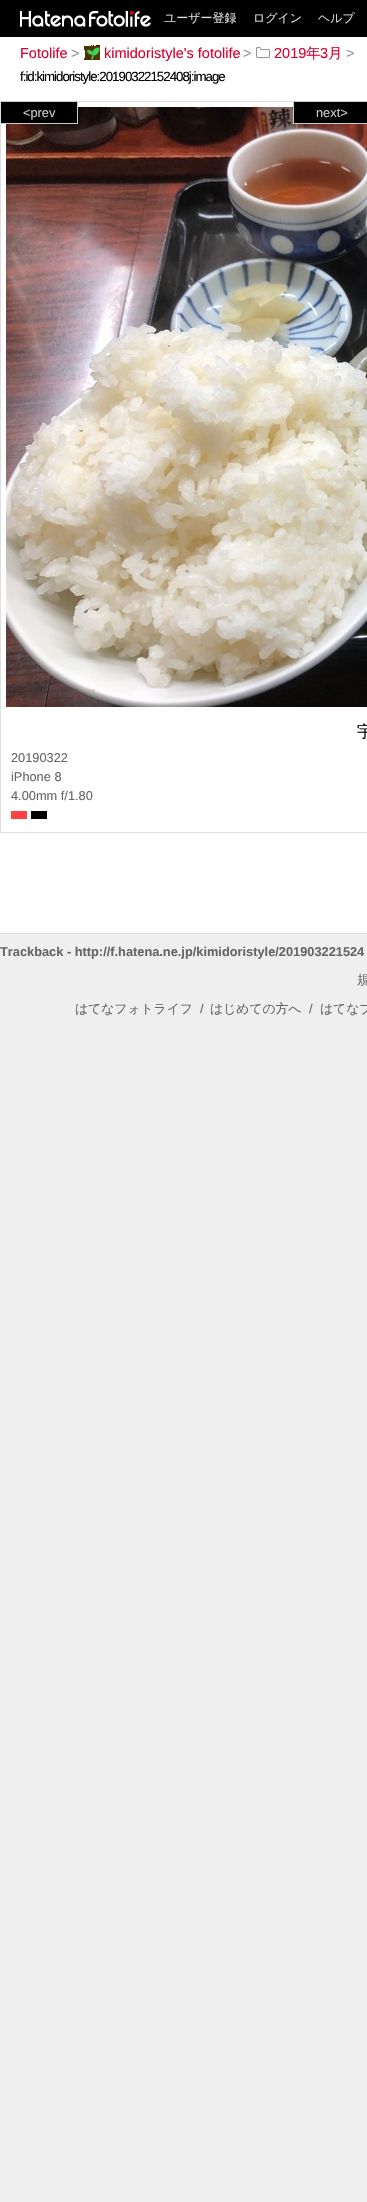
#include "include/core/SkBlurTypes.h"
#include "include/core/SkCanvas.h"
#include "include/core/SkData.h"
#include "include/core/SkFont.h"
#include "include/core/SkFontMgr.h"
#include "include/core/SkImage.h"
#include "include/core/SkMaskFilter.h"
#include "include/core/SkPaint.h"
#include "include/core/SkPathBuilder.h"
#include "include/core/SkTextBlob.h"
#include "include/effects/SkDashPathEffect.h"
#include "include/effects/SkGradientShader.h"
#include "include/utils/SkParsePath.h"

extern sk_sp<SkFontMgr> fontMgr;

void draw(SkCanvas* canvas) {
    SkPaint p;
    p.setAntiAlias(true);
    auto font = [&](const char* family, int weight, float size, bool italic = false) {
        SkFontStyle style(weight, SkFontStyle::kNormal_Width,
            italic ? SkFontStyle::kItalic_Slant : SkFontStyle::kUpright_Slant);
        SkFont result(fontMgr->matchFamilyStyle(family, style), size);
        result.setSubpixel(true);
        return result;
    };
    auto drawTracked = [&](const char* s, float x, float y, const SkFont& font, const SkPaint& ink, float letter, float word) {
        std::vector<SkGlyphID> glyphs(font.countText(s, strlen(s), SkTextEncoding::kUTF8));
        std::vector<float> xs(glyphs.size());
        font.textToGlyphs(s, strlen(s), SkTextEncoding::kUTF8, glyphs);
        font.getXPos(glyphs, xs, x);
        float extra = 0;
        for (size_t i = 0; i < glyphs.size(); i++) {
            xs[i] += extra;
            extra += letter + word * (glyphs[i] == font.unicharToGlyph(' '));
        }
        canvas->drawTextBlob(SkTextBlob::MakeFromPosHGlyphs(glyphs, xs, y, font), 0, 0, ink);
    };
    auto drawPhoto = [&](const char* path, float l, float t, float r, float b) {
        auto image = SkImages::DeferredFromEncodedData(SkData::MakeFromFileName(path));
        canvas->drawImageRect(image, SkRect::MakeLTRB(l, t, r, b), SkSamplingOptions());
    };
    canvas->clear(0xFFEFEFEF);
    p.setColor(0xFF000000);
    canvas->drawRect(SkRect::MakeLTRB(0, 0, 367, 37), p);
    drawPhoto("media/1.png", 20, 11, 86, 27);
    drawPhoto("media/2.png", 89, 11, 151, 27);
    auto font1 = font("WenQuanYi Zen Hei", 500, 12);
    p.setColor(0xFFDDDDDD);
    {
        const struct { const char* s; float x, y; } items[] = {
            {"ユーザー登録", 164, 22},
            {"ログイン", 253, 22},
            {"ヘルプ", 318, 22},
        };
        for (auto [s, x, y] : items) {
            canvas->drawString(s, x, y, font1, p);
        }
    }
    p.setColor(0xFFFFFFFF);
    canvas->drawRect(SkRect::MakeLTRB(0, 37, 367, 933), p);
    auto font2 = font("Liberation Sans", 400, 14.5f);
    p.setColor(0xFFDE002F);
    canvas->drawString("Fotolife", 20, 58, font2, p);
    p.setColor(0xFF999999);
    canvas->drawString(">", 71, 58, font2, p);
    drawPhoto("media/3.png", 84, 45, 100, 60);
    p.setColor(0xFFDE002F);
    canvas->drawString("kimidoristyle's fotolife", 104, 58, font2, p);
    p.setColor(0xFF999999);
    canvas->drawString(">", 243, 58, font2, p);
    drawPhoto("media/4.png", 256, 47, 270, 58);
    p.setColor(0xFFDE002F);
    canvas->drawString("2019", 274, 58, font2, p);
    auto font3 = font("WenQuanYi Zen Hei", 500, 14.5f);
    canvas->drawString("年", 306, 58, font3, p);
    canvas->drawString("3", 320, 58, font2, p);
    canvas->drawString("月", 328, 58, font3, p);
    p.setColor(0xFF999999);
    canvas->drawString(">", 346, 58, font2, p);
    auto font4 = font("Liberation Sans", 400, 13.3f);
    p.setColor(0xFF000000);
    drawTracked("f:id:kimidoristyle:20190322152408j:image", 20, 81, font4, p, -1, 0);
    p.setColor(0xFFDEDEDE);
    canvas->drawRect(SkRect::MakeLTRB(0, 933, 367, 934), p);
    p.setStyle(SkPaint::kStroke_Style);
    p.setStrokeWidth(1);
    canvas->drawRect(SkRect::MakeLTRB(0.5f, 101.5f, 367.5f, 832.5f), p);
    drawPhoto("media/5.png", 6, 107, 367, 707);
    p.setStyle(SkPaint::kFill_Style);
    {
        const struct { float l, t, r, b; SkColor color; } items[] = {
            {1, 102, 77, 123, 0xFF000000},
            {1, 101, 78, 102, 0xFFCCCCCC},
            {77, 101, 78, 124, 0xFFCCCCCC},
            {1, 123, 78, 124, 0xFFCCCCCC},
        };
        for (auto [l, t, r, b, color] : items) {
            p.setColor(color);
            canvas->drawRect(SkRect::MakeLTRB(l, t, r, b), p);
        }
    }
    auto font5 = font("Liberation Sans", 400, 12.8f);
    canvas->drawString("<prev", 23, 117, font5, p);
    {
        const struct { float l, t, r, b; SkColor color; } items[] = {
            {294, 102, 367, 123, 0xFF000000},
            {293, 101, 367, 102, 0xFFCCCCCC},
            {293, 123, 367, 124, 0xFFCCCCCC},
            {293, 101, 294, 124, 0xFFCCCCCC},
        };
        for (auto [l, t, r, b, color] : items) {
            p.setColor(color);
            canvas->drawRect(SkRect::MakeLTRB(l, t, r, b), p);
        }
    }
    canvas->drawString("next>", 316, 117, font5, p);
    auto font6 = font("WenQuanYi Zen Hei", 500, 16);
    p.setColor(0xFF000000);
    canvas->drawString("宇", 357, 737, font6, p);
    p.setColor(0xFF666666);
    {
        const struct { const char* s; float x, y; } items[] = {
            {"20190322", 11, 762},
            {"iPhone 8", 11, 781},
            {"4.00mm f/1.80", 11, 800},
        };
        for (auto [s, x, y] : items) {
            canvas->drawString(s, x, y, font5, p);
        }
    }
    p.setColor(0xFFFF4040);
    canvas->drawRect(SkRect::MakeLTRB(11, 811, 27, 819), p);
    p.setColor(0xFF000000);
    canvas->drawRect(SkRect::MakeLTRB(31, 811, 47, 819), p);
    auto font7 = font("Liberation Sans", 700, 12.8f);
    p.setColor(0xFF666666);
    canvas->drawString("Trackback - http://f.hatena.ne.jp/kimidoristyle/201903221524", 0, 956, font7, p);
    auto font8 = font("WenQuanYi Zen Hei", 500, 12.8f);
    canvas->drawString("規", 357, 984, font8, p);
    canvas->drawString("はてなフォトライフ", 75, 1013, font8, p);
    canvas->drawString("/", 200, 1013, font5, p);
    canvas->drawString("はじめての方へ", 210, 1013, font8, p);
    canvas->drawString("/", 309, 1013, font5, p);
    canvas->drawString("はてなブ", 320, 1013, font8, p);
}
